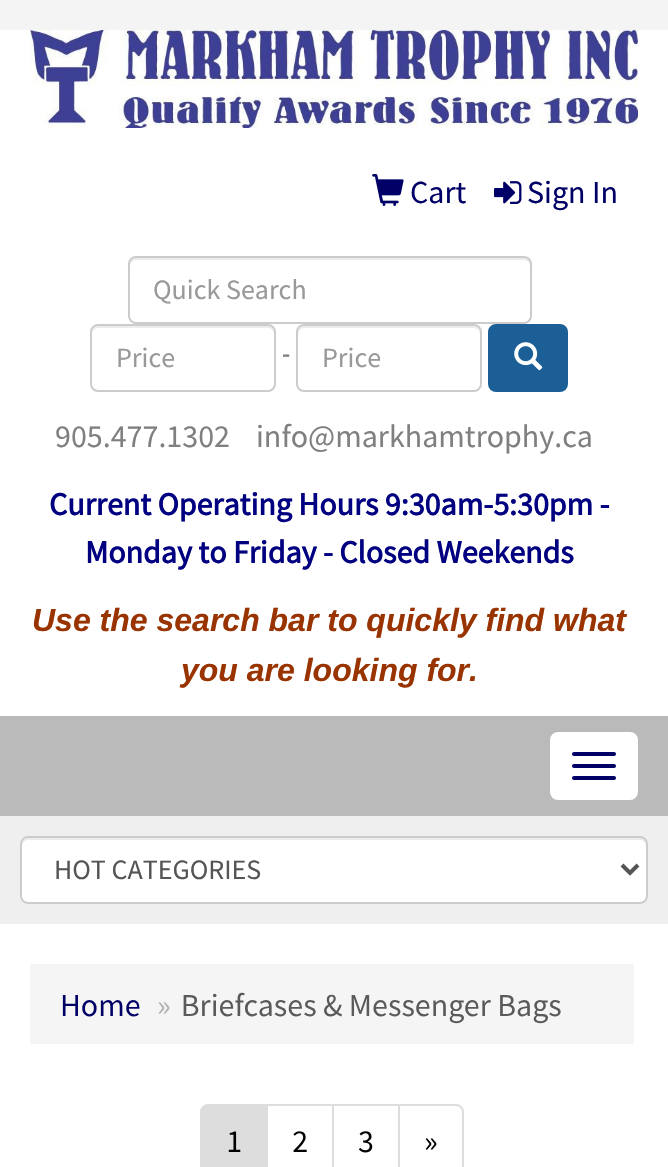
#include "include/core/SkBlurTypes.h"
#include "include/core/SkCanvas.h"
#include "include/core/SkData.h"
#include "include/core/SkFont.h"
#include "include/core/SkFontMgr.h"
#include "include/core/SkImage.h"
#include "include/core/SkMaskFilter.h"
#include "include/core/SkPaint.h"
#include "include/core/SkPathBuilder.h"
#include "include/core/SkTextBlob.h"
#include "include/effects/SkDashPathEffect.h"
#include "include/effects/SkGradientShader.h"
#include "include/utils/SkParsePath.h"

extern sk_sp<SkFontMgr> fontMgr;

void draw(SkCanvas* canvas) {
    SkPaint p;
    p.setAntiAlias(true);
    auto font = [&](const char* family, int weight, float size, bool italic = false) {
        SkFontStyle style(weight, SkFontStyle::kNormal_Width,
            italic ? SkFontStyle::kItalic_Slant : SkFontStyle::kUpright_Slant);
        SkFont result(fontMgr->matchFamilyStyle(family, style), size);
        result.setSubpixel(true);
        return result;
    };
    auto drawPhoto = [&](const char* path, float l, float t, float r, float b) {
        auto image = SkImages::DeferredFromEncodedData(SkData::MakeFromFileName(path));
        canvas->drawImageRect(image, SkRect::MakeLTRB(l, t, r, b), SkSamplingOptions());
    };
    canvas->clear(0xFFF4F4F4);
    p.setColor(0xFFFFFFFF);
    canvas->drawRect(SkRect::MakeLTRB(0, 30, 668, 716), p);
    drawPhoto("media/1.png", 30, 30, 638, 128);
    drawPhoto("media/2.png", 372, 174, 404, 206);
    auto font1 = font("Source Sans Pro", 400, 32);
    p.setColor(0xFF000066);
    canvas->drawString("Cart", 410, 203, font1, p);
    drawPhoto("media/3.png", 494, 181, 522, 204);
    canvas->drawString("Sign In", 527, 203, font1, p);
    p.setColor(0xFFECECEC);
    canvas->drawPath(SkPathBuilder().moveTo(136, 260).lineTo(524, 260).cubicTo(527, 260, 530, 263, 530, 266).cubicTo(530, 262, 529, 258, 524, 258).lineTo(136, 258).cubicTo(131, 258, 130, 262, 130, 266).cubicTo(130, 263, 133, 260, 136, 260).close().detach(), p);
    p.setStyle(SkPaint::kStroke_Style);
    p.setStrokeWidth(2);
    p.setColor(0xFFCCCCCC);
    canvas->drawRoundRect(SkRect::MakeLTRB(129, 257, 531, 323), 7, 7, p);
    auto font2 = font("Source Sans Pro", 400, 28);
    p.setStyle(SkPaint::kFill_Style);
    p.setColor(0xFF999999);
    canvas->drawString("Quick Search", 153, 299, font2, p);
    p.setColor(0xFFECECEC);
    canvas->drawPath(SkPathBuilder().moveTo(98, 328).lineTo(268, 328).cubicTo(271, 328, 274, 331, 274, 334).lineTo(274, 332).cubicTo(274, 329, 271, 326, 268, 326).lineTo(98, 326).cubicTo(95, 326, 92, 329, 92, 332).lineTo(92, 334).cubicTo(92, 331, 95, 328, 98, 328).close().detach(), p);
    p.setStyle(SkPaint::kStroke_Style);
    p.setColor(0xFFCCCCCC);
    canvas->drawRoundRect(SkRect::MakeLTRB(91, 325, 275, 391), 7, 7, p);
    p.setStyle(SkPaint::kFill_Style);
    p.setColor(0xFF999999);
    canvas->drawString("Price", 116, 367, font2, p);
    auto font3 = font("Source Sans Pro", 700, 24);
    p.setColor(0xFF808080);
    canvas->drawString("-", 282, 362, font3, p);
    p.setColor(0xFFECECEC);
    canvas->drawPath(SkPathBuilder().moveTo(304, 328).lineTo(474, 328).cubicTo(477, 328, 480, 331, 480, 334).lineTo(480, 332).cubicTo(480, 329, 477, 326, 474, 326).lineTo(304, 326).cubicTo(301, 326, 298, 329, 298, 332).lineTo(298, 334).cubicTo(298, 331, 301, 328, 304, 328).close().detach(), p);
    p.setStyle(SkPaint::kStroke_Style);
    p.setColor(0xFFCCCCCC);
    canvas->drawRoundRect(SkRect::MakeLTRB(297, 325, 481, 391), 7, 7, p);
    p.setStyle(SkPaint::kFill_Style);
    p.setColor(0xFF999999);
    canvas->drawString("Price", 322, 367, font2, p);
    p.setColor(0xFF1C5F96);
    canvas->drawRoundRect(SkRect::MakeLTRB(489, 325, 567, 391), 7, 7, p);
    p.setStyle(SkPaint::kStroke_Style);
    canvas->drawRoundRect(SkRect::MakeLTRB(489, 325, 567, 391), 7, 7, p);
    drawPhoto("media/4.png", 514, 342, 543, 371);
    p.setStyle(SkPaint::kFill_Style);
    p.setColor(0xFF808080);
    canvas->drawString("905.477.1302", 55, 447, font1, p);
    canvas->drawString("info@markhamtrophy.ca", 256, 447, font1, p);
    auto font4 = font("Source Sans Pro", 700, 32);
    p.setColor(0xFF000080);
    canvas->drawString("Current Operating Hours 9:30am-5:30pm -", 49, 515, font4, p);
    canvas->drawString("Monday to Friday - Closed Weekends", 85, 563, font4, p);
    auto font5 = font("Liberation Sans", 700, 32, true);
    p.setColor(0xFF993300);
    canvas->drawString("Use the search bar to quickly find what", 32, 631, font5, p);
    canvas->drawString("you are looking for.", 181, 681, font5, p);
    p.setColor(0xFFBBBABA);
    canvas->drawRect(SkRect::MakeLTRB(0, 716, 668, 816), p);
    p.setColor(0xFFFFFFFF);
    canvas->drawRoundRect(SkRect::MakeLTRB(551, 733, 637, 799), 7, 7, p);
    p.setStyle(SkPaint::kStroke_Style);
    canvas->drawRoundRect(SkRect::MakeLTRB(551, 733, 637, 799), 7, 7, p);
    p.setStyle(SkPaint::kFill_Style);
    p.setColor(0xFF000066);
    canvas->drawRoundRect(SkRect::MakeLTRB(572, 752, 616, 756), 2, 2, p);
    canvas->drawRoundRect(SkRect::MakeLTRB(572, 764, 616, 768), 2, 2, p);
    canvas->drawRoundRect(SkRect::MakeLTRB(572, 776, 616, 780), 2, 2, p);
    p.setColor(0xFFFFFFFF);
    canvas->drawRect(SkRect::MakeLTRB(0, 924, 668, 1167), p);
    p.setColor(0xFFEFEFEF);
    canvas->drawRect(SkRect::MakeLTRB(0, 816, 668, 924), p);
    p.setColor(0xFFFFFFFF);
    canvas->drawRoundRect(SkRect::MakeLTRB(20, 836, 648, 904), 8, 8, p);
    p.setColor(0xFFECECEC);
    canvas->drawPath(SkPathBuilder().moveTo(28, 840).lineTo(640, 840).cubicTo(643, 840, 646, 843, 646, 846).lineTo(646, 844).cubicTo(646, 841, 643, 838, 640, 838).lineTo(28, 838).cubicTo(25, 838, 22, 841, 22, 844).lineTo(22, 846).cubicTo(22, 843, 25, 840, 28, 840).close().detach(), p);
    p.setStyle(SkPaint::kStroke_Style);
    p.setColor(0xFFCCCCCC);
    canvas->drawRoundRect(SkRect::MakeLTRB(21, 837, 647, 903), 7, 7, p);
    p.setStrokeWidth(4);
    p.setColor(0xFF555555);
    canvas->drawPath(SkPathBuilder().moveTo(622, 865).lineTo(630, 873).lineTo(638, 865).detach(), p);
    p.setStyle(SkPaint::kFill_Style);
    canvas->drawString("HOT CATEGORIES", 54, 879, font2, p);
    drawPhoto("media/5.png", 30, 964, 634, 1167);
}
